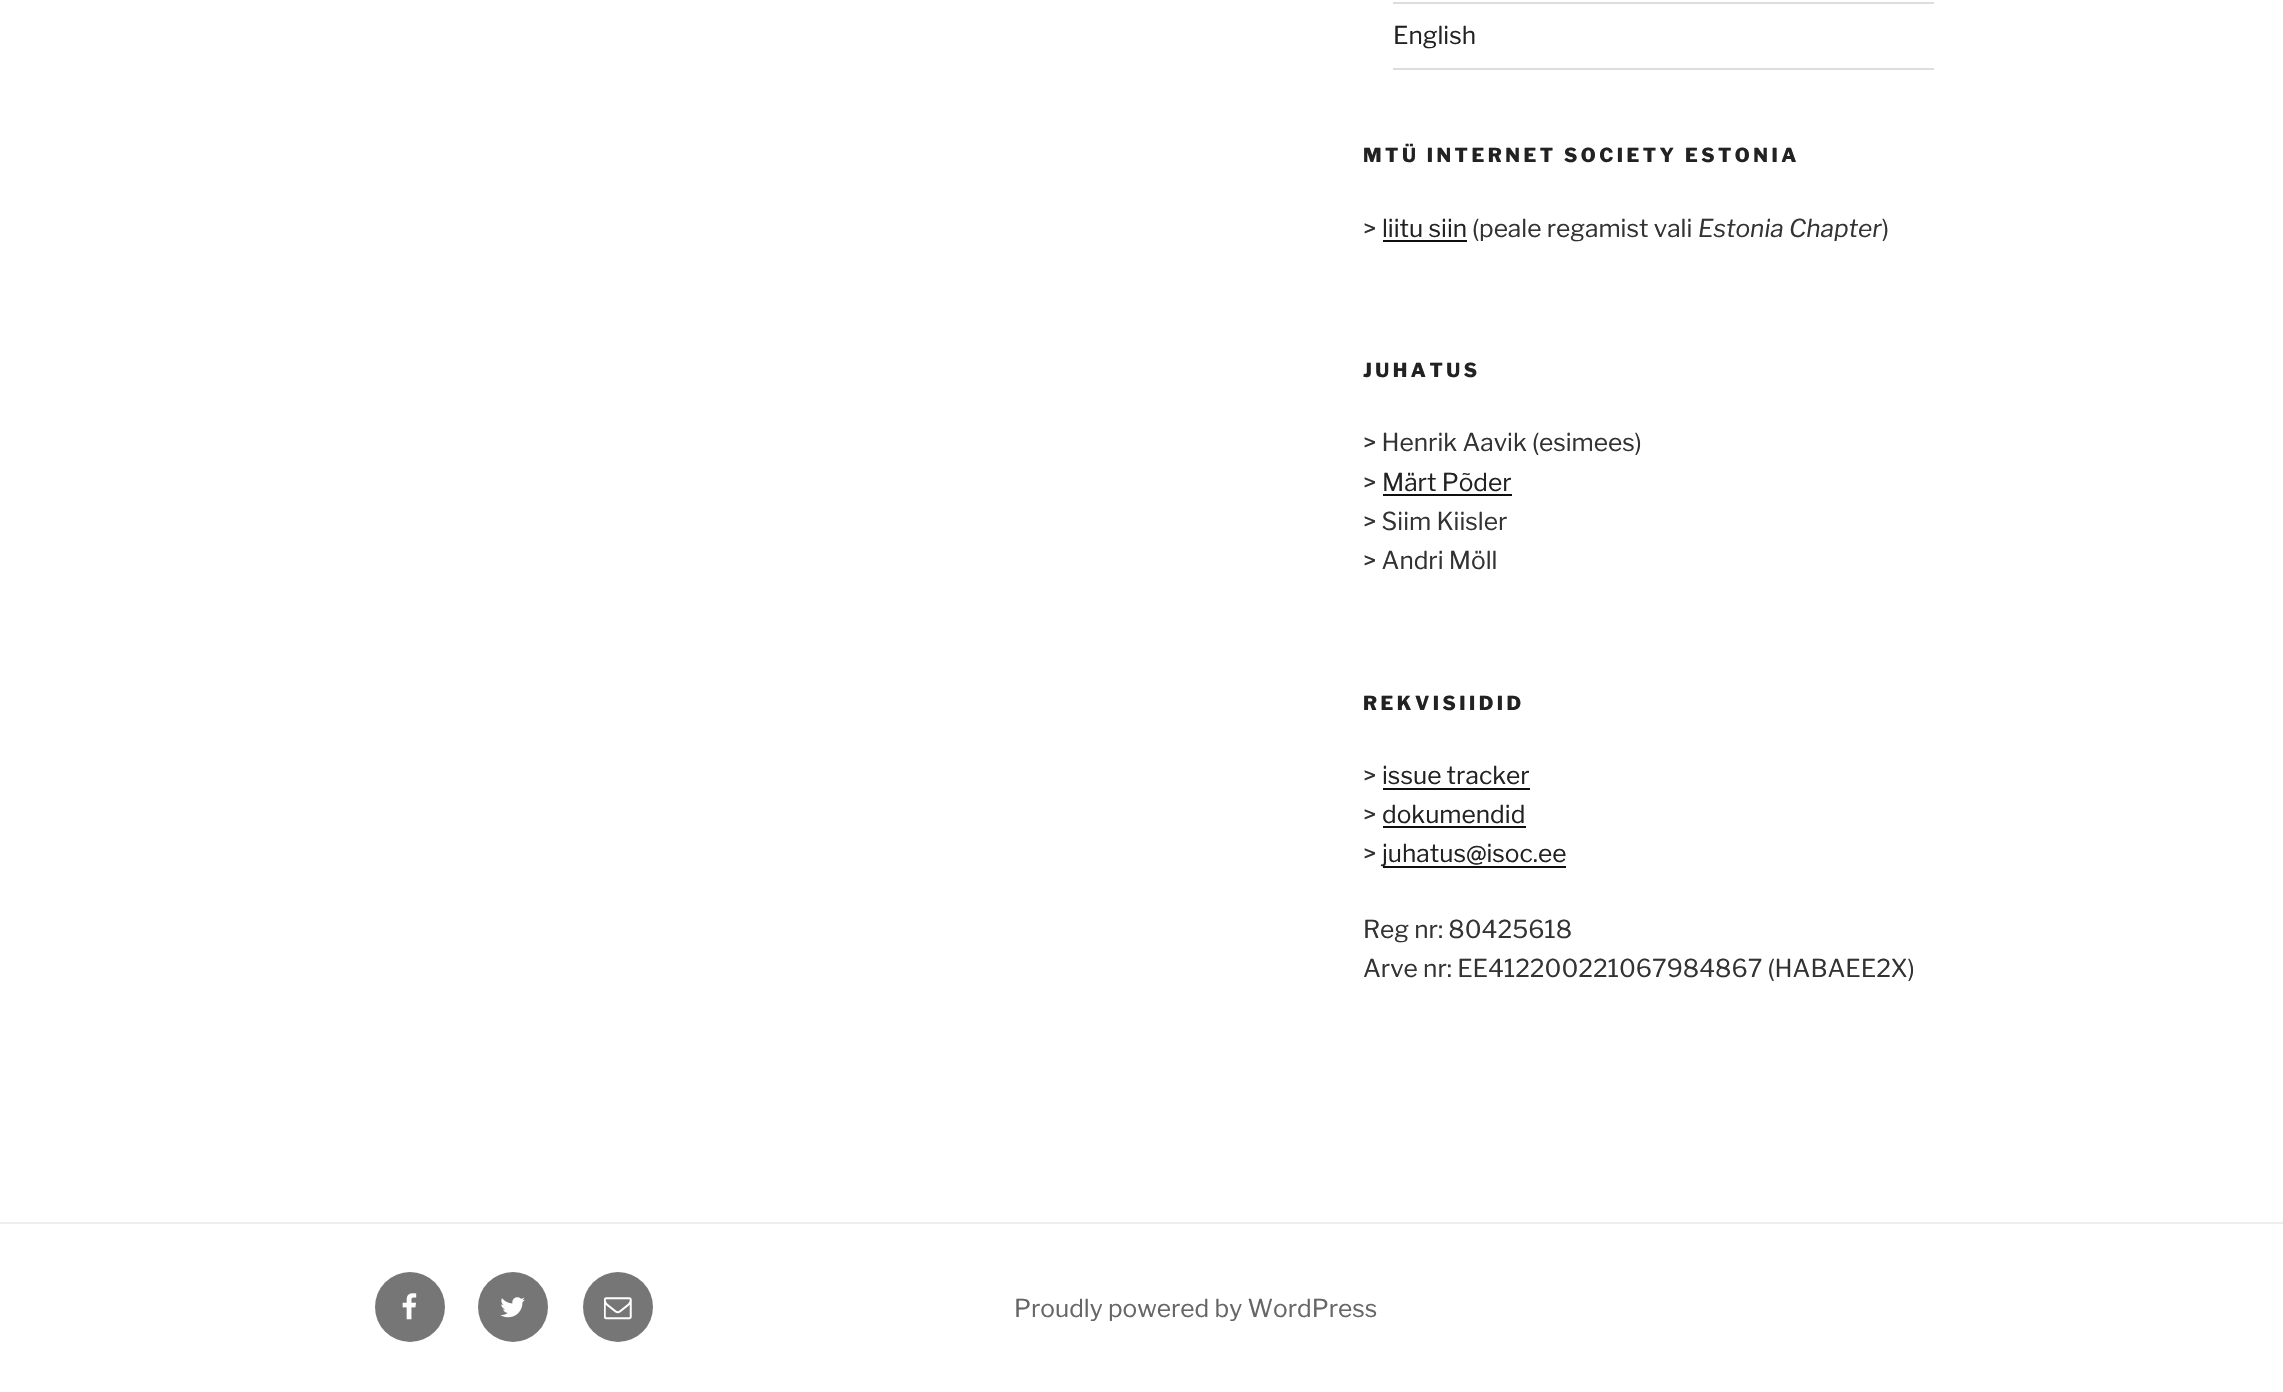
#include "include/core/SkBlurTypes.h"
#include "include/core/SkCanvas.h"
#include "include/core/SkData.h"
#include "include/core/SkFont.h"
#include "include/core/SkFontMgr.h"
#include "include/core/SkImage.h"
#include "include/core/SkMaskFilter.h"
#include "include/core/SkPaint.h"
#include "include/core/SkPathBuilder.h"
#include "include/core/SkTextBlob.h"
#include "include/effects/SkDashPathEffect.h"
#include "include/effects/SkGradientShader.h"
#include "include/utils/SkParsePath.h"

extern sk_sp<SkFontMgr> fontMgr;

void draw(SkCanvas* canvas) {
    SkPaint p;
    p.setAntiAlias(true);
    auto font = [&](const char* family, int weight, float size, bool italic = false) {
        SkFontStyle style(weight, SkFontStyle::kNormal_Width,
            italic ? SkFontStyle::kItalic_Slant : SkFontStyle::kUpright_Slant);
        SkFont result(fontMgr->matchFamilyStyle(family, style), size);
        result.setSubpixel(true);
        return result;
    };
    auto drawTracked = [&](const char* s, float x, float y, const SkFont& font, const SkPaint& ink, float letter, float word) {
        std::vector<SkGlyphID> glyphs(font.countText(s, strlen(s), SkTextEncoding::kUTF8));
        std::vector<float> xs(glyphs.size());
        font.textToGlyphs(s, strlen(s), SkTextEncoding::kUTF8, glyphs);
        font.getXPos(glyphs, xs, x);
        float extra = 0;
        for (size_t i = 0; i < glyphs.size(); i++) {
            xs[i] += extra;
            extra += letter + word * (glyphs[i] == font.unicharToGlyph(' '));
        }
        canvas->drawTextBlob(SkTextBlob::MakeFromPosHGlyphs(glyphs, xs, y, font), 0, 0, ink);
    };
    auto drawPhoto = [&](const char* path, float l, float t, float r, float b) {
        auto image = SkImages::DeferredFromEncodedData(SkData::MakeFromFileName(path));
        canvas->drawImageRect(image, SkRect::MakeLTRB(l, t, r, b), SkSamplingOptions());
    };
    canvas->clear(0xFFFFFFFF);
    p.setColor(0xFFDDDDDD);
    canvas->drawRect(SkRect::MakeLTRB(1393, 2, 1934, 4), p);
    canvas->drawRect(SkRect::MakeLTRB(1393, 68, 1934, 70), p);
    auto font1 = font("Libre Franklin", 400, 24.5f);
    p.setColor(0xFF222222);
    canvas->drawString("English", 1393, 44, font1, p);
    auto font2 = font("Libre Franklin", 800, 19.25f);
    drawTracked("MTÜ INTERNET SOCIETY ESTONIA", 1363, 162, font2, p, 3.5f, 0);
    p.setColor(0xFF333333);
    canvas->drawString(">", 1363, 237, font1, p);
    p.setColor(0xFF222222);
    canvas->drawString("liitu siin", 1382, 237, font1, p);
    p.setColor(0xFF0F0F0F);
    canvas->drawRect(SkRect::MakeLTRB(1383, 240, 1467, 242), p);
    p.setColor(0xFF333333);
    canvas->drawString("(peale regamist vali", 1472, 237, font1, p);
    auto font3 = font("Libre Franklin", 400, 24.5f, true);
    canvas->drawString("Estonia Chapter", 1698, 237, font3, p);
    canvas->drawString(")", 1882, 237, font1, p);
    p.setColor(0xFF222222);
    drawTracked("JUHATUS", 1363, 377, font2, p, 3.5f, 0);
    p.setColor(0xFF333333);
    canvas->drawString("> Henrik Aavik (esimees)", 1363, 451, font1, p);
    canvas->drawString(">", 1363, 491, font1, p);
    p.setColor(0xFF222222);
    canvas->drawString("Märt Põder", 1382, 491, font1, p);
    p.setColor(0xFF0F0F0F);
    canvas->drawRect(SkRect::MakeLTRB(1383, 494, 1512, 496), p);
    p.setColor(0xFF333333);
    canvas->drawString("> Siim Kiisler", 1363, 530, font1, p);
    canvas->drawString("> Andri Möll", 1363, 569, font1, p);
    p.setColor(0xFF222222);
    drawTracked("REKVISIIDID", 1363, 710, font2, p, 3.5f, 0);
    p.setColor(0xFF333333);
    canvas->drawString(">", 1363, 784, font1, p);
    p.setColor(0xFF222222);
    canvas->drawString("issue tracker", 1382, 784, font1, p);
    p.setColor(0xFF0F0F0F);
    canvas->drawRect(SkRect::MakeLTRB(1383, 788, 1530, 790), p);
    p.setColor(0xFF333333);
    canvas->drawString(">", 1363, 823, font1, p);
    p.setColor(0xFF222222);
    canvas->drawString("dokumendid", 1382, 823, font1, p);
    p.setColor(0xFF0F0F0F);
    canvas->drawRect(SkRect::MakeLTRB(1383, 826, 1526, 828), p);
    p.setColor(0xFF333333);
    canvas->drawString(">", 1363, 862, font1, p);
    p.setColor(0xFF0F0F0F);
    canvas->drawRect(SkRect::MakeLTRB(1383, 866, 1566, 868), p);
    p.setColor(0xFF222222);
    canvas->drawString("juhatus@isoc.ee", 1382, 862, font1, p);
    p.setColor(0xFF333333);
    canvas->drawString("Reg nr: 80425618", 1363, 938, font1, p);
    canvas->drawString("Arve nr: EE412200221067984867 (HABAEE2X)", 1363, 977, font1, p);
    p.setColor(0xFFEEEEEE);
    canvas->drawRect(SkRect::MakeLTRB(0, 1222, 2283, 1224), p);
    p.setColor(0xFF767676);
    canvas->drawCircle(410, 1307, 35, p);
    drawPhoto("media/1.png", 402, 1293, 417, 1320);
    canvas->drawCircle(513, 1307, 35, p);
    drawPhoto("media/2.png", 500, 1297, 525, 1318);
    canvas->drawCircle(618, 1307, 35, p);
    drawPhoto("media/3.png", 604, 1297, 632, 1320);
    p.setColor(0xFF666666);
    canvas->drawString("Proudly powered by WordPress", 1014, 1317, font1, p);
}
